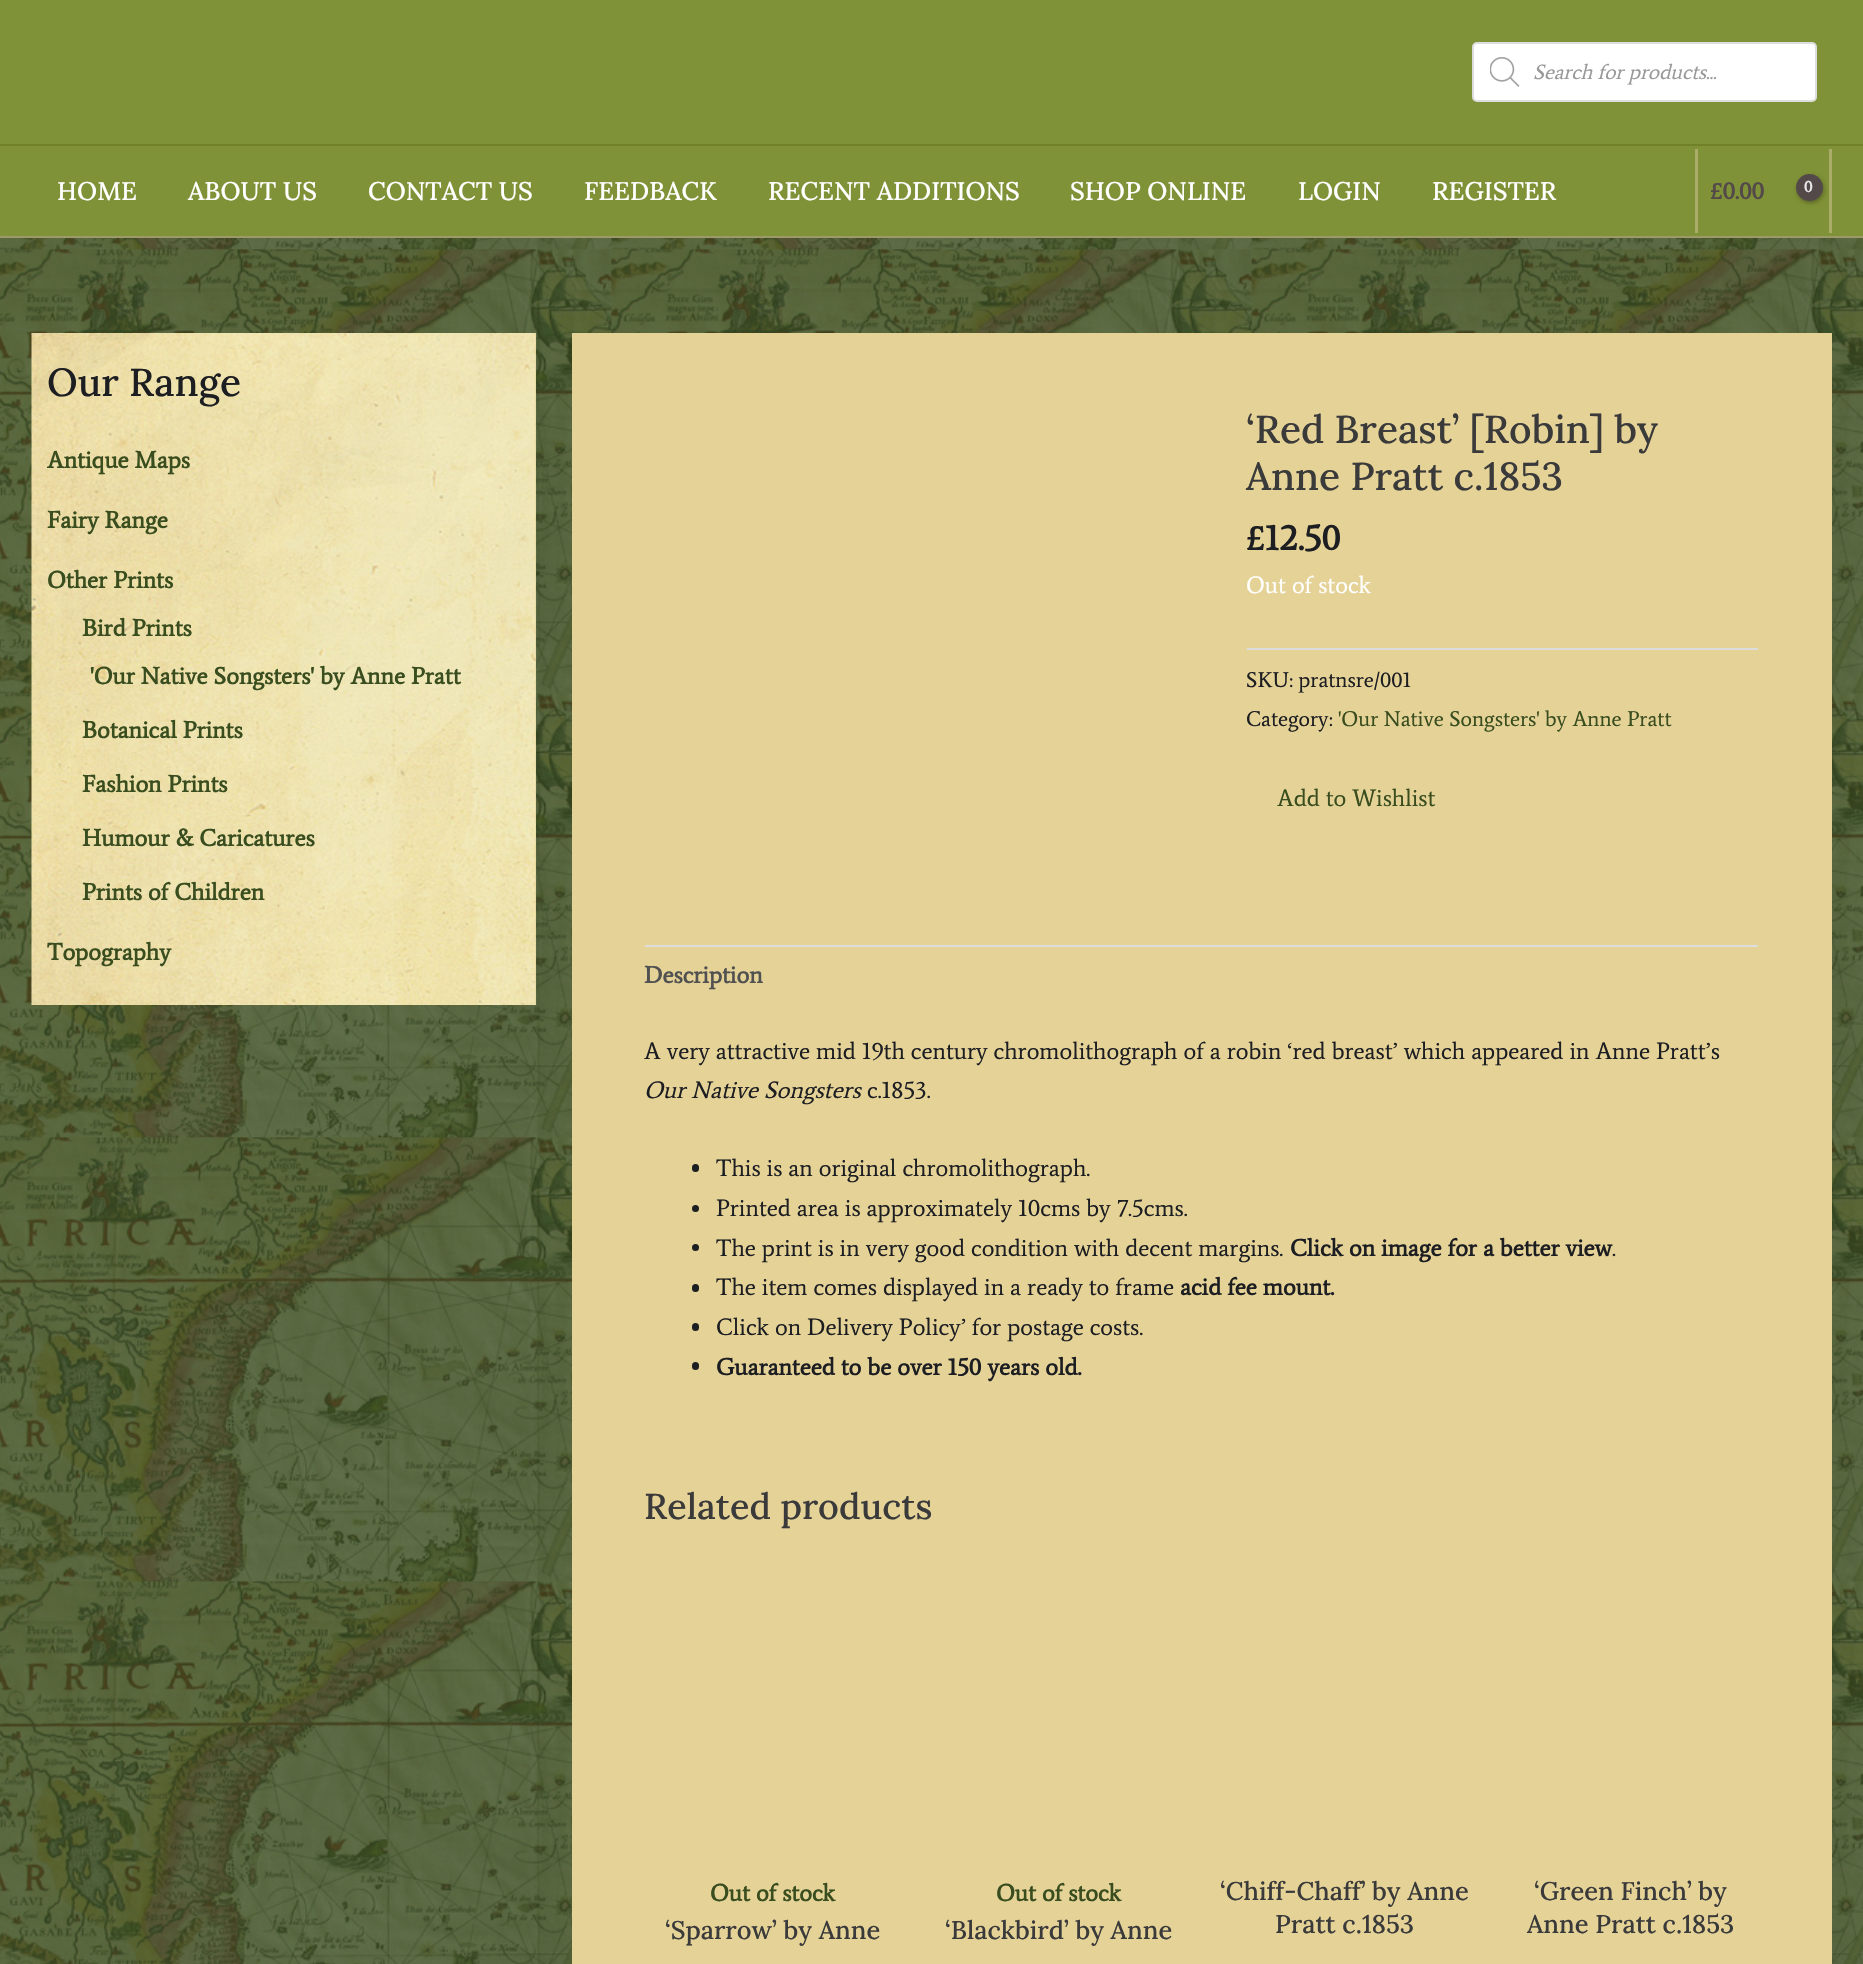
#include "include/core/SkBlurTypes.h"
#include "include/core/SkCanvas.h"
#include "include/core/SkData.h"
#include "include/core/SkFont.h"
#include "include/core/SkFontMgr.h"
#include "include/core/SkImage.h"
#include "include/core/SkMaskFilter.h"
#include "include/core/SkPaint.h"
#include "include/core/SkPathBuilder.h"
#include "include/core/SkTextBlob.h"
#include "include/effects/SkDashPathEffect.h"
#include "include/effects/SkGradientShader.h"
#include "include/utils/SkParsePath.h"

extern sk_sp<SkFontMgr> fontMgr;

void draw(SkCanvas* canvas) {
    SkPaint p;
    p.setAntiAlias(true);
    auto font = [&](const char* family, int weight, float size, bool italic = false) {
        SkFontStyle style(weight, SkFontStyle::kNormal_Width,
            italic ? SkFontStyle::kItalic_Slant : SkFontStyle::kUpright_Slant);
        SkFont result(fontMgr->matchFamilyStyle(family, style), size);
        result.setSubpixel(true);
        return result;
    };
    auto drawTracked = [&](const char* s, float x, float y, const SkFont& font, const SkPaint& ink, float letter, float word) {
        std::vector<SkGlyphID> glyphs(font.countText(s, strlen(s), SkTextEncoding::kUTF8));
        std::vector<float> xs(glyphs.size());
        font.textToGlyphs(s, strlen(s), SkTextEncoding::kUTF8, glyphs);
        font.getXPos(glyphs, xs, x);
        float extra = 0;
        for (size_t i = 0; i < glyphs.size(); i++) {
            xs[i] += extra;
            extra += letter + word * (glyphs[i] == font.unicharToGlyph(' '));
        }
        canvas->drawTextBlob(SkTextBlob::MakeFromPosHGlyphs(glyphs, xs, y, font), 0, 0, ink);
    };
    auto drawPhoto = [&](const char* path, float l, float t, float r, float b) {
        auto image = SkImages::DeferredFromEncodedData(SkData::MakeFromFileName(path));
        canvas->drawImageRect(image, SkRect::MakeLTRB(l, t, r, b), SkSamplingOptions());
    };
    canvas->clear(0xFFFFFFFF);
    drawPhoto("media/1.png", 0, 238, 1863, 1964);
    p.setColor(0xFF809237);
    canvas->drawRect(SkRect::MakeLTRB(0, 0, 1863, 144), p);
    p.setColor(0xFF71812A);
    canvas->drawRect(SkRect::MakeLTRB(0, 144, 1863, 146), p);
    p.setColor(0xFFFFFFFF);
    canvas->drawRoundRect(SkRect::MakeLTRB(1473, 43, 1816, 101), 4, 4, p);
    p.setStyle(SkPaint::kStroke_Style);
    p.setStrokeWidth(2);
    p.setColor(0xFFDDDDDD);
    canvas->drawRoundRect(SkRect::MakeLTRB(1473, 43, 1816, 101), 4, 4, p);
    drawPhoto("media/2.png", 1490, 57, 1520, 87);
    auto font1 = font("Average", 400, 21, true);
    p.setStyle(SkPaint::kFill_Style);
    p.setColor(0xFF999999);
    canvas->drawString("Search for products...", 1533, 79, font1, p);
    p.setColor(0xFF809237);
    canvas->drawRect(SkRect::MakeLTRB(0, 146, 1863, 236), p);
    p.setColor(0xFF9D9A69);
    canvas->drawRect(SkRect::MakeLTRB(0, 236, 1863, 238), p);
    auto font2 = font("Lora", 500, 25.5f);
    p.setColor(0xFFFFFFFF);
    {
        const struct { const char* s; float x, y; } items[] = {
            {"HOME", 57, 200},
            {"ABOUT US", 188, 200},
            {"CONTACT US", 368, 200},
            {"FEEDBACK", 584, 200},
            {"RECENT ADDITIONS", 768, 200},
            {"SHOP ONLINE", 1070, 200},
            {"LOGIN", 1298, 200},
            {"REGISTER", 1432, 200},
        };
        for (auto [s, x, y] : items) {
            canvas->drawString(s, x, y, font2, p);
        }
    }
    p.setColor(0xFFACAC6A);
    canvas->drawRect(SkRect::MakeLTRB(1829, 149, 1832, 233), p);
    canvas->drawRect(SkRect::MakeLTRB(1695, 149, 1698, 233), p);
    auto font3 = font("Average", 700, 24);
    p.setColor(0xFF534949);
    canvas->drawString("£0.00", 1710, 199, font3, p);
    p.setColor(0x4D000000);
    p.setMaskFilter(SkMaskFilter::MakeBlur(kNormal_SkBlurStyle, 2));
    canvas->drawRoundRect(SkRect::MakeLTRB(1797, 176, 1824, 203), 13.5f, 13.5f, p);
    p.setMaskFilter(nullptr);
    p.setColor(0xFF534949);
    canvas->drawCircle(1809.5f, 187.5f, 13.5f, p);
    auto font4 = font("Average", 700, 16);
    p.setColor(0xFFE8E8E8);
    drawTracked("0", 1804, 192, font4, p, -1, 0);
    p.setColor(0xFFE5D297);
    canvas->drawRect(SkRect::MakeLTRB(535, 333, 536, 1005), p);
    drawPhoto("media/3.png", 31, 333, 536, 1005);
    auto font5 = font("Lora", 500, 39);
    p.setColor(0xFF1D1E22);
    canvas->drawString("Our Range", 47, 396, font5, p);
    p.setColor(0xFF394D1E);
    {
        const struct { const char* s; float x, y; } items[] = {
            {"Antique Maps", 47, 468},
            {"Fairy Range", 47, 528},
            {"Other Prints", 47, 588},
            {"Bird Prints", 82, 636},
            {"'Our Native Songsters' by Anne Pratt", 90, 684},
            {"Botanical Prints", 82, 738},
            {"Fashion Prints", 82, 792},
            {"Humour & Caricatures", 82, 846},
            {"Prints of Children", 82, 900},
            {"Topography", 47, 960},
        };
        for (auto [s, x, y] : items) {
            canvas->drawString(s, x, y, font3, p);
        }
    }
    p.setColor(0xFFE5D297);
    canvas->drawRect(SkRect::MakeLTRB(572, 333, 1832, 1964), p);
    p.setColor(0xFF3A3A3A);
    canvas->drawString("‘Red Breast’ [Robin] by", 1246, 443, font5, p);
    canvas->drawString("Anne Pratt c.1853", 1246, 490, font5, p);
    auto font6 = font("Average", 700, 36);
    p.setColor(0xFF1D1E22);
    canvas->drawString("£12.50", 1246, 550, font6, p);
    auto font7 = font("Average", 400, 24);
    p.setColor(0xFFFFFFFF);
    canvas->drawString("Out of stock", 1246, 593, font7, p);
    p.setColor(0xFFDDDDDD);
    canvas->drawRect(SkRect::MakeLTRB(1247, 648, 1758, 650), p);
    auto font8 = font("Average", 400, 21.6f);
    p.setColor(0xFF1D1E22);
    canvas->drawString("SKU: pratnsre/001", 1246, 687, font8, p);
    canvas->drawString("Category:", 1246, 726, font8, p);
    p.setColor(0xFF394D1E);
    canvas->drawString("'Our Native Songsters' by Anne Pratt", 1338, 726, font8, p);
    canvas->drawString("Add to Wishlist", 1277, 806, font7, p);
    p.setColor(0xFFDDDDDD);
    canvas->drawRect(SkRect::MakeLTRB(645, 945, 1758, 947), p);
    p.setColor(0xFF515151);
    canvas->drawString("Description", 644, 983, font3, p);
    p.setColor(0xFF1D1E22);
    canvas->drawString("A very attractive mid 19th century chromolithograph of a robin ‘red breast’ which appeared in Anne Pratt’s", 644, 1059, font7, p);
    auto font9 = font("Average", 400, 24, true);
    canvas->drawString("Our Native Songsters", 644, 1098, font9, p);
    canvas->drawString("c.1853.", 867, 1098, font7, p);
    canvas->drawRoundRect(SkRect::MakeLTRB(692, 1164, 699, 1172), 3.5f, 3.5f, p);
    canvas->drawString("This is an original chromolithograph.", 716, 1176, font7, p);
    canvas->drawCircle(695.5f, 1208.5f, 3.5f, p);
    canvas->drawString("Printed area is approximately 10cms by 7.5cms.", 716, 1216, font7, p);
    canvas->drawCircle(695.5f, 1247.5f, 3.5f, p);
    canvas->drawString("The print is in very good condition with decent margins.", 716, 1256, font7, p);
    canvas->drawString("Click on image for a better view", 1290, 1256, font3, p);
    canvas->drawString(".", 1612, 1256, font7, p);
    canvas->drawRoundRect(SkRect::MakeLTRB(692, 1284, 699, 1292), 3.5f, 3.5f, p);
    canvas->drawString("The item comes displayed in a ready to frame", 716, 1295, font7, p);
    canvas->drawString("acid fee mount.", 1180, 1295, font3, p);
    canvas->drawRoundRect(SkRect::MakeLTRB(692, 1323, 699, 1331), 3.5f, 3.5f, p);
    canvas->drawString("Click on Delivery Policy’ for postage costs.", 716, 1335, font7, p);
    canvas->drawRoundRect(SkRect::MakeLTRB(692, 1362, 699, 1370), 3.5f, 3.5f, p);
    canvas->drawString("Guaranteed to be over 150 years old.", 716, 1375, font3, p);
    auto font10 = font("Lora", 500, 36);
    p.setColor(0xFF3A3A3A);
    canvas->drawString("Related products", 644, 1519, font10, p);
    p.setColor(0xFF394D1E);
    canvas->drawString("Out of stock", 710, 1901, font3, p);
    p.setColor(0xFF3A3A3A);
    canvas->drawString("‘Sparrow’ by Anne", 665, 1939, font2, p);
    p.setColor(0xFF394D1E);
    canvas->drawString("Out of stock", 996, 1901, font3, p);
    p.setColor(0xFF3A3A3A);
    {
        const struct { const char* s; float x, y; } items[] = {
            {"‘Blackbird’ by Anne", 945, 1939},
            {"‘Chiff-Chaff’ by Anne", 1220, 1900},
            {"Pratt c.1853", 1275, 1933},
            {"‘Green Finch’ by", 1534, 1900},
            {"Anne Pratt c.1853", 1527, 1933},
        };
        for (auto [s, x, y] : items) {
            canvas->drawString(s, x, y, font2, p);
        }
    }
}
